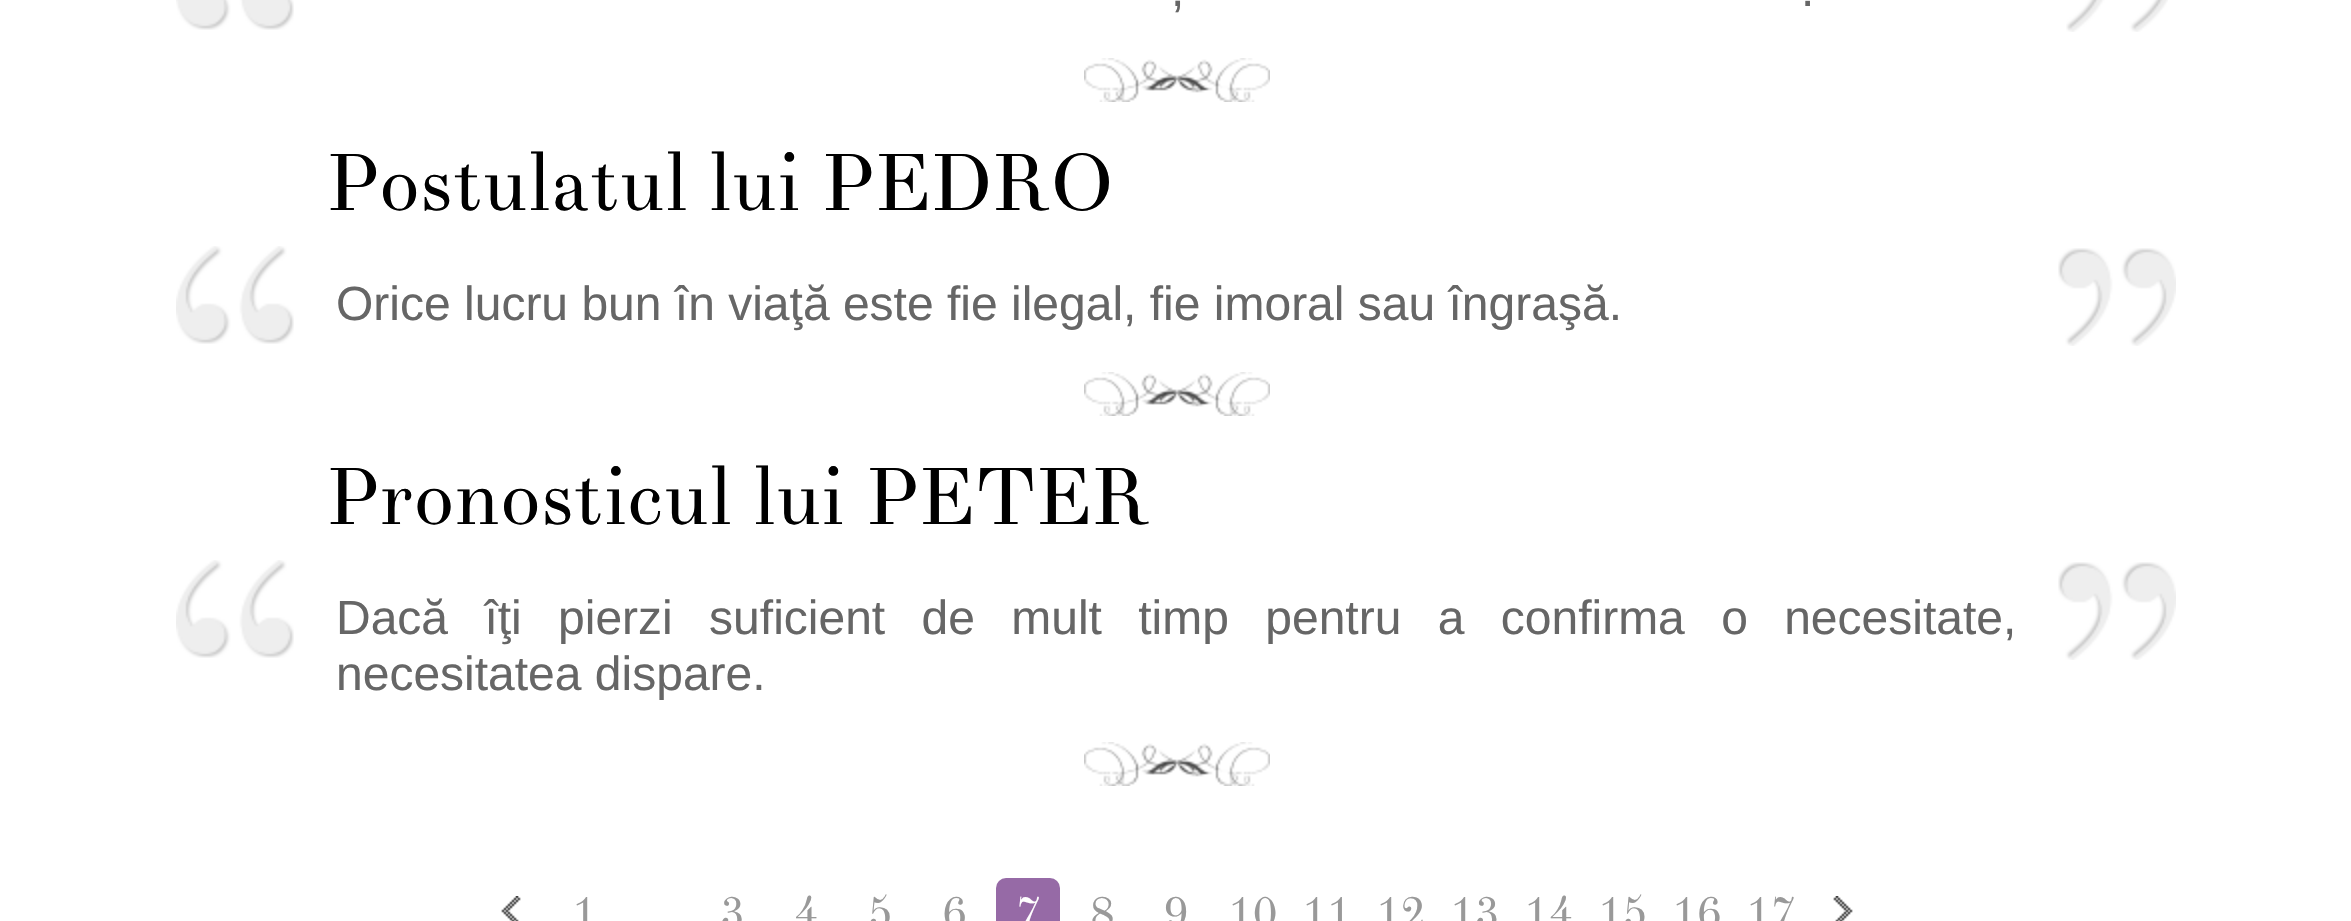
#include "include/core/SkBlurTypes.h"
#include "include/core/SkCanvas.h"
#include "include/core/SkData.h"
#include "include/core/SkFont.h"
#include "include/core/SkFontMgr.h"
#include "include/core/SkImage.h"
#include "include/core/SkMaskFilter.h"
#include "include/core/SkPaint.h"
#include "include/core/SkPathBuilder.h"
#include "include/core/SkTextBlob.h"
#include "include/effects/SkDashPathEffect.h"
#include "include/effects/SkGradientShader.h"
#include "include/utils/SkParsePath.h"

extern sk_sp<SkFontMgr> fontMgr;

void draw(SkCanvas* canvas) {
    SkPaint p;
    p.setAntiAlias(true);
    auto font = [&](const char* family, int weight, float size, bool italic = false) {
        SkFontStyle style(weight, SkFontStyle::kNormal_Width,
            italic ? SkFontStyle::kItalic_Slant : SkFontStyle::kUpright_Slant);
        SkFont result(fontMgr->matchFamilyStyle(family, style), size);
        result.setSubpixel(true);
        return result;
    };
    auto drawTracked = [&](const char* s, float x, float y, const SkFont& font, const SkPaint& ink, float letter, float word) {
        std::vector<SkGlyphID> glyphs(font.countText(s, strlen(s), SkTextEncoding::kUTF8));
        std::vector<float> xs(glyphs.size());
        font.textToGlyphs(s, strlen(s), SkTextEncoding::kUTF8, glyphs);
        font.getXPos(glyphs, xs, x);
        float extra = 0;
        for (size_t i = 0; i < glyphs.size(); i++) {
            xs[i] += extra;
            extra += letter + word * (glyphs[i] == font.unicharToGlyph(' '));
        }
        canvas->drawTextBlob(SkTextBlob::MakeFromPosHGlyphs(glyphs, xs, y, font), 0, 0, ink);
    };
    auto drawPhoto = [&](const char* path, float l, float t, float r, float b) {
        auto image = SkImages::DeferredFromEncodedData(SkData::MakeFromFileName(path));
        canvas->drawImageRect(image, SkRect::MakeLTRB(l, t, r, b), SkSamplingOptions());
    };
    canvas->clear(0xFFFFFFFF);
    drawPhoto("media/1.png", 176, 0, 294, 30);
    auto font1 = font("Liberation Sans", 400, 48);
    p.setColor(0xFF666666);
    canvas->drawString(",", 1171, 6, font1, p);
    canvas->drawString(".", 1801, 6, font1, p);
    drawPhoto("media/2.png", 2066, 0, 2168, 32);
    drawPhoto("media/3.png", 1084, 58, 1270, 102);
    auto font2 = font("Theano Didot", 400, 80);
    p.setColor(0xFF000000);
    canvas->drawString("Postulatul lui PEDRO", 326, 210, font2, p);
    drawPhoto("media/4.png", 176, 246, 294, 344);
    p.setColor(0xFF666666);
    canvas->drawString("Orice lucru bun în viaţă este fie ilegal, fie imoral sau îngraşă.", 336, 320, font1, p);
    drawPhoto("media/5.png", 2058, 248, 2176, 346);
    drawPhoto("media/3.png", 1084, 372, 1270, 416);
    p.setColor(0xFF000000);
    canvas->drawString("Pronosticul lui PETER", 326, 524, font2, p);
    drawPhoto("media/4.png", 176, 560, 294, 658);
    p.setColor(0xFF666666);
    drawTracked("Dacă îţi pierzi suficient de mult timp pentru a confirma o necesitate,", 336, 634, font1, p, 0, 23);
    canvas->drawString("necesitatea dispare.", 336, 690, font1, p);
    drawPhoto("media/5.png", 2058, 562, 2176, 660);
    drawPhoto("media/3.png", 1084, 742, 1270, 786);
    drawPhoto("media/6.png", 501, 896, 521, 921);
    auto font3 = font("Theano Didot", 400, 44);
    p.setColor(0xFF999999);
    {
        const struct { const char* s; float x, y; } items[] = {
            {"1", 572, 928},
            {"3", 720, 928},
            {"4", 794, 928},
            {"5", 868, 928},
            {"6", 942, 928},
        };
        for (auto [s, x, y] : items) {
            canvas->drawString(s, x, y, font3, p);
        }
    }
    p.setColor(0xFF966AA6);
    canvas->drawRoundRect(SkRect::MakeLTRB(996, 878, 1060, 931), 10, 10, p);
    p.setColor(0xFFFFFFFF);
    canvas->drawString("7", 1016, 928, font3, p);
    p.setColor(0xFF999999);
    {
        const struct { const char* s; float x, y; } items[] = {
            {"8", 1090, 928},
            {"9", 1164, 928},
            {"10", 1228, 928},
            {"11", 1302, 928},
            {"12", 1376, 928},
            {"13", 1450, 928},
            {"14", 1524, 928},
            {"15", 1598, 928},
            {"16", 1672, 928},
            {"17", 1746, 928},
        };
        for (auto [s, x, y] : items) {
            canvas->drawString(s, x, y, font3, p);
        }
    }
    drawPhoto("media/7.png", 1833, 896, 1853, 921);
}
